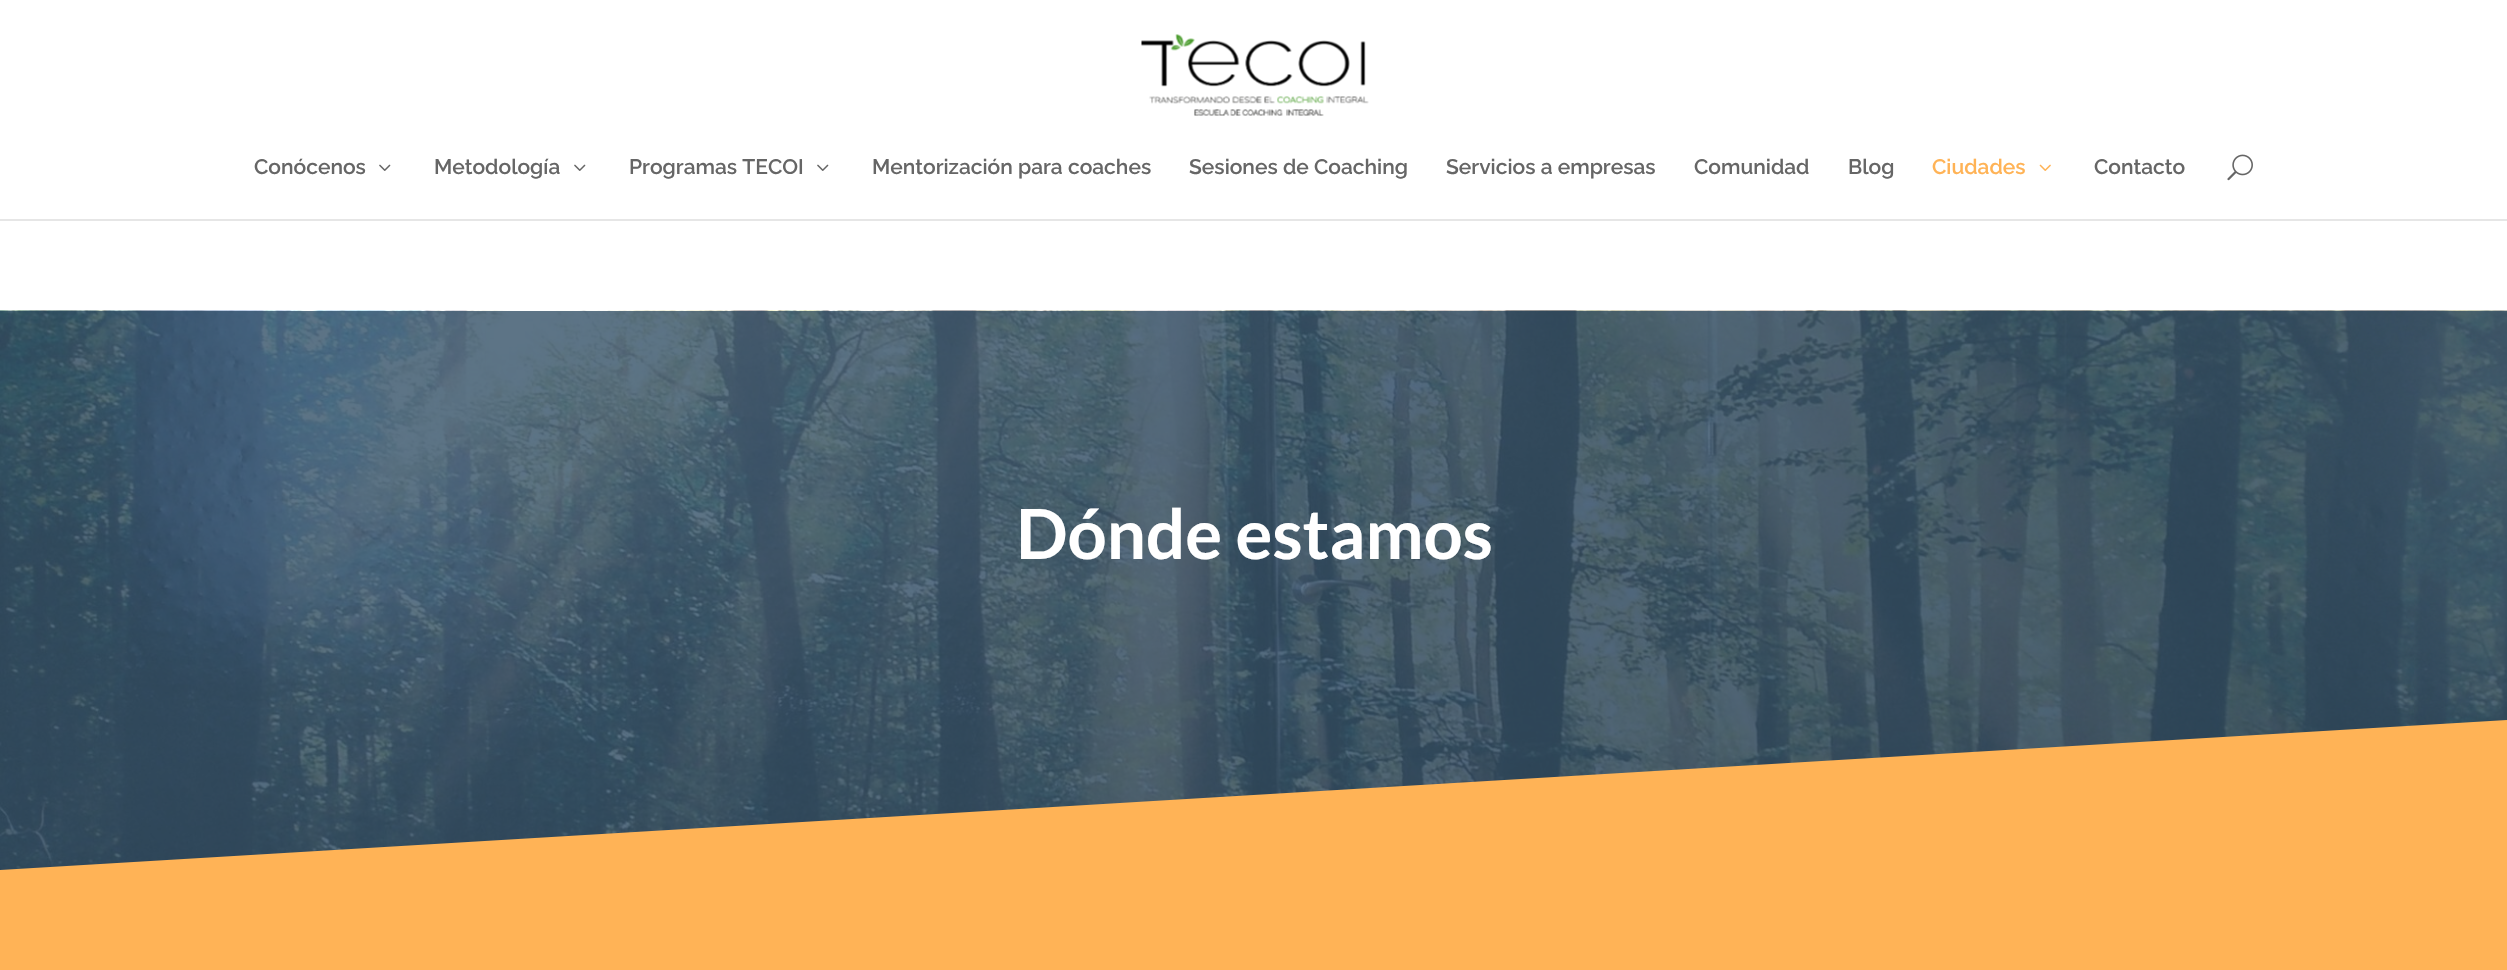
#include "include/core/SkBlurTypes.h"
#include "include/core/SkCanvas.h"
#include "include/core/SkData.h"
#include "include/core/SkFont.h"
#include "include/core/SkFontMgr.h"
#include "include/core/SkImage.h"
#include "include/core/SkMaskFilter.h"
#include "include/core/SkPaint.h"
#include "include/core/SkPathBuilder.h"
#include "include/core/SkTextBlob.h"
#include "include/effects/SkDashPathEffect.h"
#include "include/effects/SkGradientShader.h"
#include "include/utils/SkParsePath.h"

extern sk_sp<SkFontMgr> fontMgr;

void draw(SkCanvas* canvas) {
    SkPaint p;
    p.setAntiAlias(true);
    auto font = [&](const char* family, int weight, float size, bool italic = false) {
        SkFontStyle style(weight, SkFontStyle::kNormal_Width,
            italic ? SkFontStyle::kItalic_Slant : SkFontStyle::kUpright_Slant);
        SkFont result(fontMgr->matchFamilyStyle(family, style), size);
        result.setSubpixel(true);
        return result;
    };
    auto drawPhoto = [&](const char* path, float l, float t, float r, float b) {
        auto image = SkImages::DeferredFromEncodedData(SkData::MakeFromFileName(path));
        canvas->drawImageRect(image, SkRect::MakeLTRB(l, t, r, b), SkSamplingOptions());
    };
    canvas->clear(0xFFFFFFFF);
    p.setColor(0xFFE6E6E6);
    canvas->drawRect(SkRect::MakeLTRB(0, 219, 2507, 221), p);
    drawPhoto("media/1.png", 1141, 34, 1369, 116);
    auto font1 = font("Raleway", 100, 21);
    p.setColor(0xFF666666);
    canvas->drawString("Conócenos", 254, 174, font1, p);
    drawPhoto("media/2.png", 379, 164, 391, 171);
    canvas->drawString("Metodología", 434, 174, font1, p);
    drawPhoto("media/2.png", 574, 164, 586, 171);
    canvas->drawString("Programas TECOI", 629, 174, font1, p);
    drawPhoto("media/2.png", 817, 164, 829, 171);
    {
        const struct { const char* s; float x, y; } items[] = {
            {"Mentorización para coaches", 872, 174},
            {"Sesiones de Coaching", 1189, 174},
            {"Servicios a empresas", 1446, 174},
            {"Comunidad", 1694, 174},
            {"Blog", 1848, 174},
        };
        for (auto [s, x, y] : items) {
            canvas->drawString(s, x, y, font1, p);
        }
    }
    p.setColor(0xFFFFB356);
    canvas->drawString("Ciudades", 1932, 174, font1, p);
    drawPhoto("media/3.png", 2039, 164, 2051, 171);
    p.setColor(0xFF666666);
    canvas->drawString("Contacto", 2094, 174, font1, p);
    drawPhoto("media/4.png", 2227, 154, 2253, 181);
    drawPhoto("media/5.png", 0, 310, 2507, 870);
    auto font2 = font("Lato", 700, 69);
    p.setColor(0xFFFFFFFF);
    canvas->drawString("Dónde estamos", 1016, 559, font2, p);
    p.setColor(0xFFFFB356);
    canvas->drawPath(SkPathBuilder().moveTo(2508, 720).lineTo(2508, 870).lineTo(0, 870).close().detach(), p);
    canvas->drawRect(SkRect::MakeLTRB(0, 870, 2507, 970), p);
}
